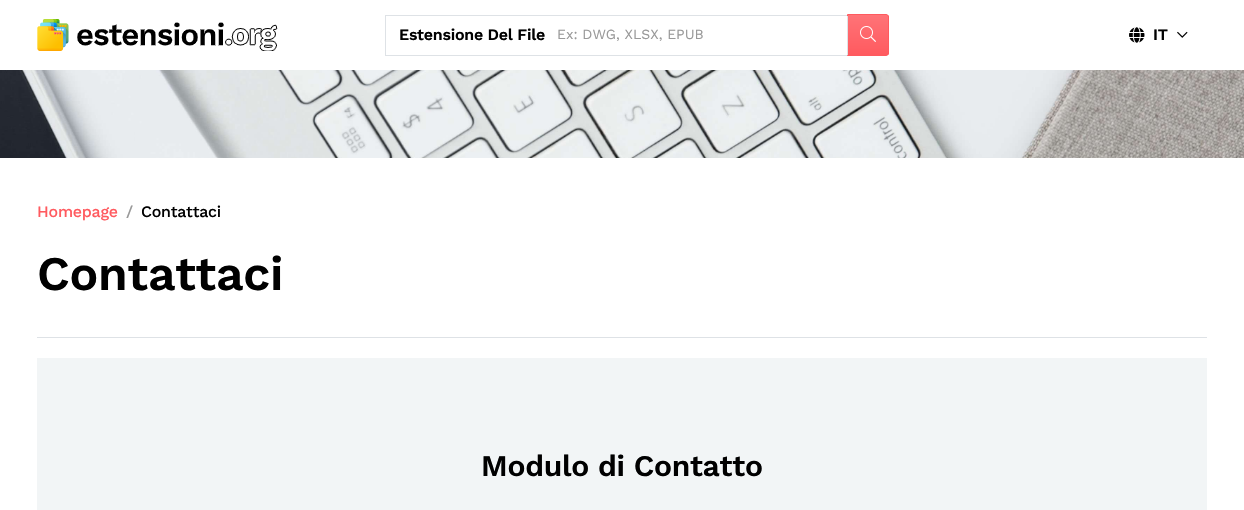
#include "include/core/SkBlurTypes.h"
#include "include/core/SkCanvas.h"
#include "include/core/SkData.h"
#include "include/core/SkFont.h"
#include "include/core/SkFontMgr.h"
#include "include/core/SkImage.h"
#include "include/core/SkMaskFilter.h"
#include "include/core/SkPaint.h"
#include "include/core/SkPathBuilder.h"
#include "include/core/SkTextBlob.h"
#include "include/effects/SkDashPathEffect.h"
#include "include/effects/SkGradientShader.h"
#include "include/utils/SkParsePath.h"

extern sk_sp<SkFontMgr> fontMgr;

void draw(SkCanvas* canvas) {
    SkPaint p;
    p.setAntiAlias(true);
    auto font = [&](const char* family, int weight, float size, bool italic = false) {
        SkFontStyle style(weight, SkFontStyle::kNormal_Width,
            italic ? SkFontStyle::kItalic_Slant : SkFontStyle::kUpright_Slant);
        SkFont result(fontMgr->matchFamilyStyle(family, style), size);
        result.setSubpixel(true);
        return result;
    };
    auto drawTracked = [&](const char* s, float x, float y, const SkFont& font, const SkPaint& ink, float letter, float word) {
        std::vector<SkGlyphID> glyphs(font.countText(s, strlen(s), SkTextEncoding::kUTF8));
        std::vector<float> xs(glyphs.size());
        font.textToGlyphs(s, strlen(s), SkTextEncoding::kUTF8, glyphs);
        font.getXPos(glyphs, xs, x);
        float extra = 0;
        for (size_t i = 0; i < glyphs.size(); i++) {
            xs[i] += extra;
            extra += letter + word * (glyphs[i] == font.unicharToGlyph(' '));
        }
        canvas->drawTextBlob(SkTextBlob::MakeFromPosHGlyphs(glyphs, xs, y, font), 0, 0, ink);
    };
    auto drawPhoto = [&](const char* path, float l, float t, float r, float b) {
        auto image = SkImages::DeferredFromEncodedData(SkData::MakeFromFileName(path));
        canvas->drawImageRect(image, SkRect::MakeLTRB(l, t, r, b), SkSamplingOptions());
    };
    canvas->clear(0xFFFFFFFF);
    drawPhoto("media/1.png", 37, 19, 278, 51);
    p.setStyle(SkPaint::kStroke_Style);
    p.setStrokeWidth(1);
    p.setColor(0xFFDEE2E6);
    canvas->drawRect(SkRect::MakeLTRB(385.5f, 15.5f, 848.5f, 55.5f), p);
    canvas->save();
    canvas->clipPath(SkPathBuilder().moveTo(847, 14).lineTo(886, 14).cubicTo(887.5f, 14, 889, 15.5f, 889, 17).lineTo(889, 53).cubicTo(889, 54.5f, 887.5f, 56, 886, 56).lineTo(847, 56).close().detach(), true);
    p.setStyle(SkPaint::kFill_Style);
    {
        const SkColor colors[] = {0xFFFF7377, 0xFFFF5A5F};
        const float stops[] = {0, 1};
        const SkPoint ends[] = {{868, 15}, {868, 55}};
        p.setShader(SkGradientShader::MakeLinear(ends, colors, stops, 2, SkTileMode::kClamp));
        p.setAlpha(255);
    }
    canvas->drawRect(SkRect::MakeLTRB(848, 15, 889, 55), p);
    canvas->restore();
    p.setStyle(SkPaint::kStroke_Style);
    p.setShader(nullptr);
    p.setColor(0xFFFF5A5F);
    canvas->drawPath(SkPathBuilder().moveTo(847.5f, 14.5f).lineTo(886, 14.5f).cubicTo(887.5f, 14.5f, 888.5f, 15.5f, 888.5f, 17).lineTo(888.5f, 53).cubicTo(888.5f, 54.5f, 887.5f, 55.5f, 886, 55.5f).lineTo(847.5f, 55.5f).close().detach(), p);
    p.setStyle(SkPaint::kFill_Style);
    p.setColor(0xFFDEE2E6);
    canvas->drawRect(SkRect::MakeLTRB(847, 16, 848, 55), p);
    auto font1 = font("Work Sans", 600, 16);
    p.setColor(0xFF000000);
    drawTracked("Estensione Del File", 399, 40, font1, p, -0.25f, 0);
    auto font2 = font("Work Sans", 400, 14);
    p.setColor(0xFF999999);
    canvas->drawString("Ex: DWG, XLSX, EPUB", 557, 39, font2, p);
    drawPhoto("media/2.png", 860, 26, 876, 42);
    drawPhoto("media/3.png", 1129, 27, 1145, 43);
    p.setColor(0xFF000000);
    drawTracked("IT", 1153, 40, font1, p, -0.25f, 0);
    drawPhoto("media/4.png", 1177, 31, 1188, 38);
    drawPhoto("media/5.png", 0, 70, 1244, 158);
    p.setColor(0xFFDEE2E6);
    canvas->drawRect(SkRect::MakeLTRB(37, 337, 1207, 338), p);
    auto font3 = font("Work Sans", 500, 16);
    p.setColor(0xFFFF5A5F);
    drawTracked("Homepage", 37, 217, font3, p, -0.25f, 0);
    p.setColor(0xFF999999);
    drawTracked("/", 126, 217, font3, p, -0.25f, 0);
    p.setColor(0xFF000000);
    drawTracked("Contattaci", 141, 217, font3, p, -0.25f, 0);
    auto font4 = font("Work Sans", 600, 48);
    drawTracked("Contattaci", 37, 290, font4, p, -0.25f, 0);
    p.setColor(0xFFF2F5F6);
    canvas->drawRect(SkRect::MakeLTRB(37, 358, 1207, 510), p);
    auto font5 = font("Work Sans", 600, 30);
    p.setColor(0xFF000000);
    drawTracked("Modulo di Contatto", 481, 476, font5, p, -0.25f, 0);
}
